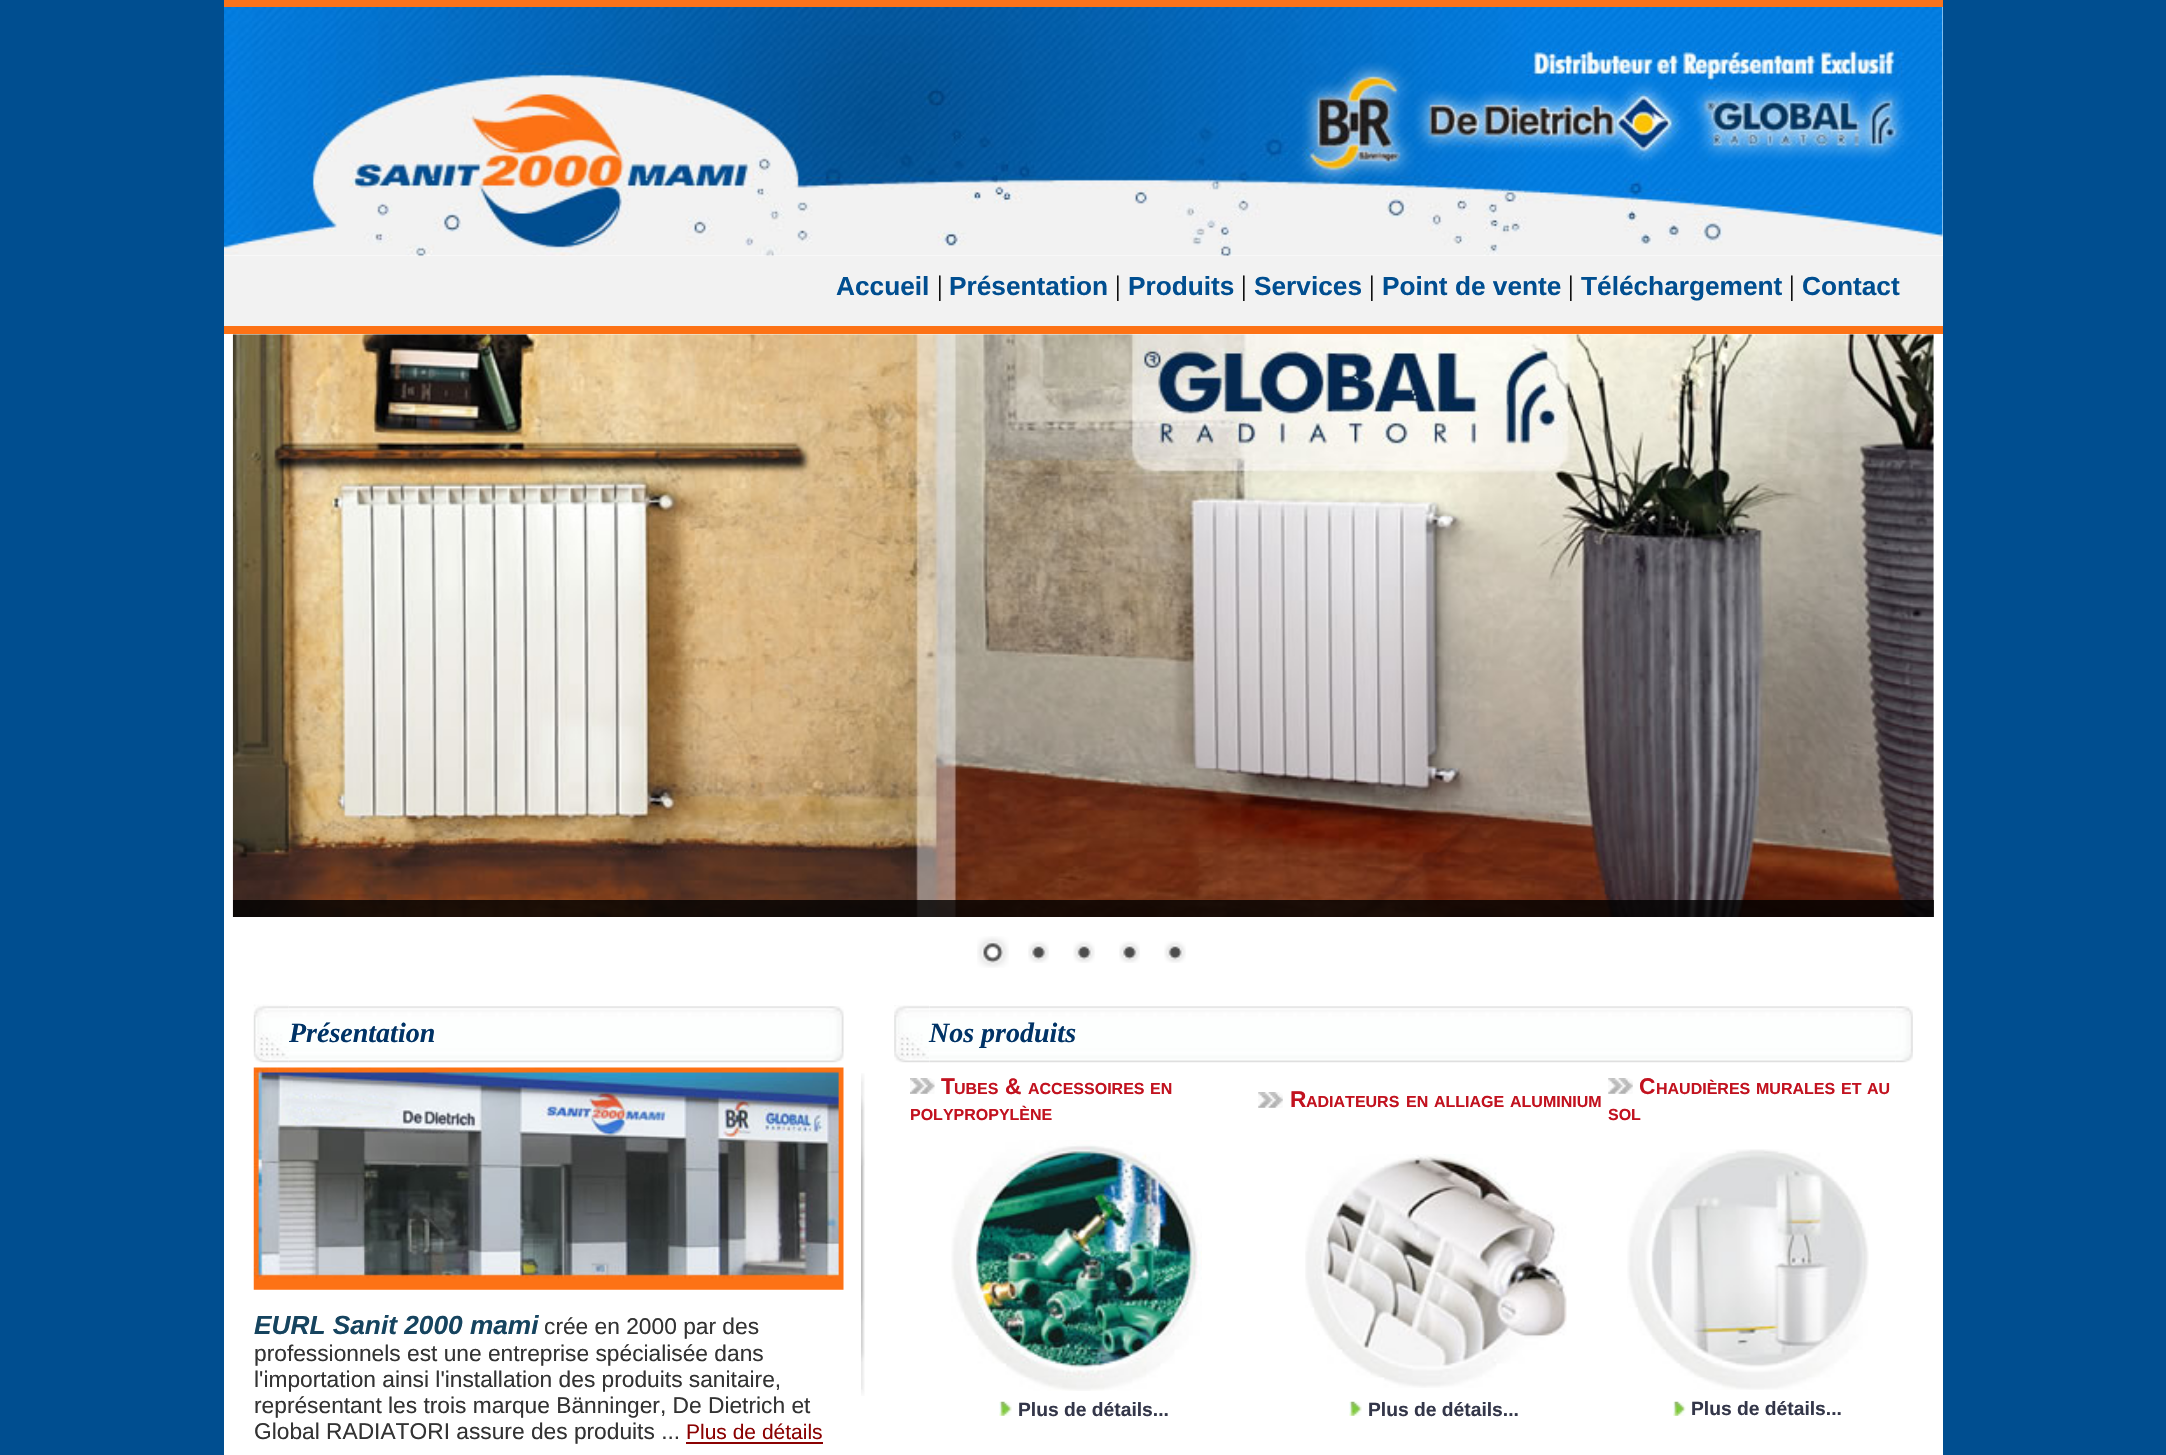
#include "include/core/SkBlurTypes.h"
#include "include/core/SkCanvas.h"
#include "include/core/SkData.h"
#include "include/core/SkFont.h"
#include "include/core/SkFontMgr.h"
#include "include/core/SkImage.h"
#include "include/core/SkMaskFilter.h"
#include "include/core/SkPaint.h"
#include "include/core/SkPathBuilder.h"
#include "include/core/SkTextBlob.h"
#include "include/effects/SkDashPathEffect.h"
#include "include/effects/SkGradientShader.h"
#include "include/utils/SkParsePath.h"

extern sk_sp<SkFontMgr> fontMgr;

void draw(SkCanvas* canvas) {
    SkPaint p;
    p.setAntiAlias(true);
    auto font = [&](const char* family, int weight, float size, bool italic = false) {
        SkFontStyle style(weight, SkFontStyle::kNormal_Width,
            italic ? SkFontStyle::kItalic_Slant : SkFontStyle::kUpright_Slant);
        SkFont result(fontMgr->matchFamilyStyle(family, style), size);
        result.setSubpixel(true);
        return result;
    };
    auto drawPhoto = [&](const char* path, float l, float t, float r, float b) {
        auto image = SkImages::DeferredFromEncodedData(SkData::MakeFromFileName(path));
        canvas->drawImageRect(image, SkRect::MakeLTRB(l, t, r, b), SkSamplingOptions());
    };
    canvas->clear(0xFF004E90);
    p.setColor(0xFFFFFFFF);
    canvas->drawRect(SkRect::MakeLTRB(224, 7, 1943, 1455), p);
    p.setColor(0xFFFB731B);
    canvas->drawRect(SkRect::MakeLTRB(224, 0, 1943, 7), p);
    drawPhoto("media/1.png", 224, 7, 1943, 256);
    p.setColor(0xFFF2F2F2);
    canvas->drawRect(SkRect::MakeLTRB(224, 256, 1943, 326), p);
    auto font1 = font("Liberation Sans", 700, 26.25f);
    p.setColor(0xFF004E90);
    canvas->drawString("Accueil", 836, 295, font1, p);
    auto font2 = font("Liberation Serif", 400, 28);
    p.setColor(0xFF000000);
    canvas->drawString("|", 937, 295, font2, p);
    p.setColor(0xFF004E90);
    canvas->drawString("Présentation", 949, 295, font1, p);
    p.setColor(0xFF000000);
    canvas->drawString("|", 1115, 295, font2, p);
    p.setColor(0xFF004E90);
    canvas->drawString("Produits", 1128, 295, font1, p);
    p.setColor(0xFF000000);
    canvas->drawString("|", 1241, 295, font2, p);
    p.setColor(0xFF004E90);
    canvas->drawString("Services", 1254, 295, font1, p);
    p.setColor(0xFF000000);
    canvas->drawString("|", 1369, 295, font2, p);
    p.setColor(0xFF004E90);
    canvas->drawString("Point de vente", 1382, 295, font1, p);
    p.setColor(0xFF000000);
    canvas->drawString("|", 1568, 295, font2, p);
    p.setColor(0xFF004E90);
    canvas->drawString("Téléchargement", 1581, 295, font1, p);
    p.setColor(0xFF000000);
    canvas->drawString("|", 1789, 295, font2, p);
    p.setColor(0xFF004E90);
    canvas->drawString("Contact", 1802, 295, font1, p);
    p.setColor(0xFFFD7215);
    canvas->drawRect(SkRect::MakeLTRB(224, 326, 1943, 334), p);
    drawPhoto("media/2.png", 232, 334, 1934, 917);
    p.setColor(0xCC000000);
    canvas->drawRect(SkRect::MakeLTRB(233, 900, 1934, 917), p);
    drawPhoto("media/3.png", 977, 936, 1009, 968);
    drawPhoto("media/4.png", 1028, 941, 1049, 963);
    drawPhoto("media/5.png", 1073, 941, 1095, 963);
    drawPhoto("media/4.png", 1119, 941, 1140, 963);
    drawPhoto("media/5.png", 1164, 941, 1186, 963);
    drawPhoto("media/7.png", 288, 1006, 826, 1063);
    drawPhoto("media/6.png", 253, 1004, 289, 1063);
    auto font3 = font("Liberation Serif", 700, 28, true);
    p.setColor(0xFF003366);
    canvas->drawString("Présentation", 289, 1042, font3, p);
    drawPhoto("media/8.png", 826, 1006, 844, 1063);
    drawPhoto("media/9.png", 253, 1067, 844, 1290);
    auto font4 = font("Liberation Sans", 700, 26.25f, true);
    p.setColor(0xFF16445F);
    canvas->drawString("EURL Sanit 2000 mami", 254, 1334, font4, p);
    auto font5 = font("Liberation Sans", 400, 22.75f);
    p.setColor(0xFF333333);
    {
        const struct { const char* s; float x, y; } items[] = {
            {"crée en 2000 par des", 544, 1334},
            {"professionnels est une entreprise spécialisée dans", 254, 1361},
            {"l'importation ainsi l'installation des produits sanitaire,", 254, 1387},
            {"représentant les trois marque Bänninger, De Dietrich et", 254, 1413},
            {"Global RADIATORI assure des produits ...", 254, 1439},
        };
        for (auto [s, x, y] : items) {
            canvas->drawString(s, x, y, font5, p);
        }
    }
    auto font6 = font("Liberation Sans", 400, 21);
    p.setColor(0xFF8B0101);
    canvas->drawString("Plus de détails", 686, 1439, font6, p);
    canvas->drawRect(SkRect::MakeLTRB(686, 1442, 823, 1444), p);
    drawPhoto("media/10.png", 861, 1073, 865, 1396);
    drawPhoto("media/11.png", 894, 1005, 929, 1063);
    drawPhoto("media/12.png", 929, 1006, 1896, 1063);
    p.setColor(0xFF003366);
    canvas->drawString("Nos produits", 929, 1042, font3, p);
    drawPhoto("media/13.png", 1895, 1006, 1913, 1063);
    drawPhoto("media/14.png", 910, 1078, 935, 1094);
    auto font7 = font("Liberation Sans", 700, 22.75f);
    p.setColor(0xFFC2121F);
    canvas->drawString("T", 941, 1094, font7, p);
    auto font8 = font("Liberation Sans", 700, 16);
    canvas->drawString("UBES", 954, 1094, font8, p);
    canvas->drawString("&", 1005, 1094, font7, p);
    {
        const struct { const char* s; float x, y; } items[] = {
            {"ACCESSOIRES", 1028, 1094},
            {"EN", 1150, 1094},
            {"POLYPROPYLÈNE", 910, 1120},
        };
        for (auto [s, x, y] : items) {
            canvas->drawString(s, x, y, font8, p);
        }
    }
    drawPhoto("media/15.png", 1258, 1092, 1283, 1108);
    canvas->drawString("R", 1290, 1107, font7, p);
    {
        const struct { const char* s; float x, y; } items[] = {
            {"ADIATEURS", 1306, 1107},
            {"EN", 1406, 1107},
            {"ALLIAGE", 1434, 1107},
            {"ALUMINIUM", 1510, 1107},
        };
        for (auto [s, x, y] : items) {
            canvas->drawString(s, x, y, font8, p);
        }
    }
    drawPhoto("media/16.png", 1608, 1078, 1633, 1094);
    canvas->drawString("C", 1639, 1094, font7, p);
    {
        const struct { const char* s; float x, y; } items[] = {
            {"HAUDIÈRES", 1656, 1094},
            {"MURALES", 1756, 1094},
            {"ET", 1841, 1094},
            {"AU", 1867, 1094},
            {"SOL", 1608, 1120},
        };
        for (auto [s, x, y] : items) {
            canvas->drawString(s, x, y, font8, p);
        }
    }
    drawPhoto("media/17.png", 951, 1140, 1202, 1391);
    drawPhoto("media/18.png", 1305, 1154, 1567, 1388);
    drawPhoto("media/19.png", 1627, 1149, 1869, 1390);
    drawPhoto("media/20.png", 999, 1401, 1012, 1416);
    auto font9 = font("Liberation Sans", 700, 19.25f);
    p.setColor(0xFF333649);
    canvas->drawString("Plus de détails...", 1018, 1416, font9, p);
    drawPhoto("media/21.png", 1349, 1401, 1362, 1416);
    canvas->drawString("Plus de détails...", 1368, 1416, font9, p);
    drawPhoto("media/22.png", 1673, 1401, 1686, 1416);
    canvas->drawString("Plus de détails...", 1691, 1415, font9, p);
}
